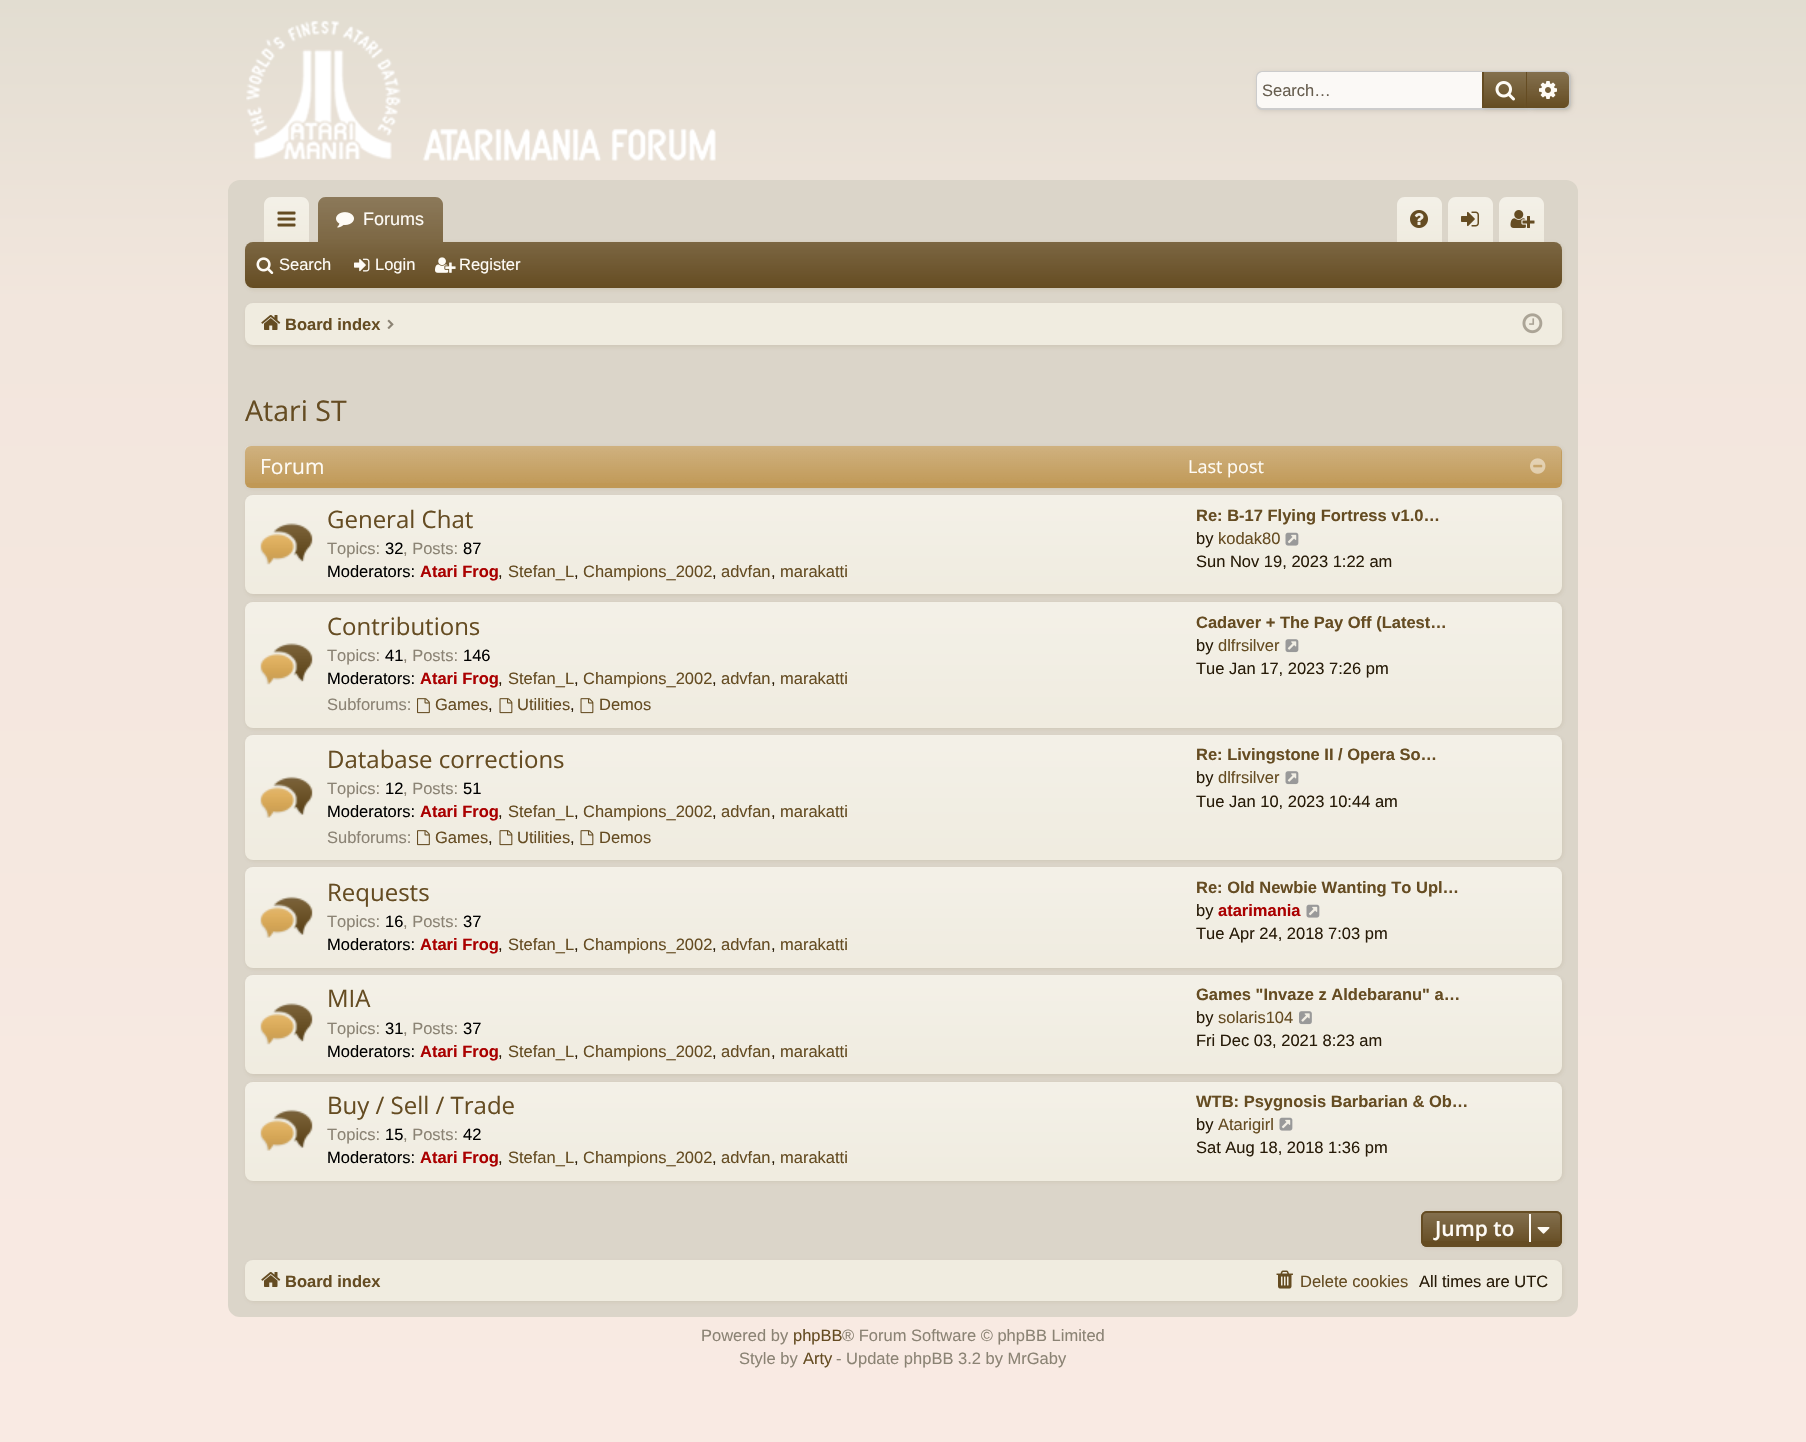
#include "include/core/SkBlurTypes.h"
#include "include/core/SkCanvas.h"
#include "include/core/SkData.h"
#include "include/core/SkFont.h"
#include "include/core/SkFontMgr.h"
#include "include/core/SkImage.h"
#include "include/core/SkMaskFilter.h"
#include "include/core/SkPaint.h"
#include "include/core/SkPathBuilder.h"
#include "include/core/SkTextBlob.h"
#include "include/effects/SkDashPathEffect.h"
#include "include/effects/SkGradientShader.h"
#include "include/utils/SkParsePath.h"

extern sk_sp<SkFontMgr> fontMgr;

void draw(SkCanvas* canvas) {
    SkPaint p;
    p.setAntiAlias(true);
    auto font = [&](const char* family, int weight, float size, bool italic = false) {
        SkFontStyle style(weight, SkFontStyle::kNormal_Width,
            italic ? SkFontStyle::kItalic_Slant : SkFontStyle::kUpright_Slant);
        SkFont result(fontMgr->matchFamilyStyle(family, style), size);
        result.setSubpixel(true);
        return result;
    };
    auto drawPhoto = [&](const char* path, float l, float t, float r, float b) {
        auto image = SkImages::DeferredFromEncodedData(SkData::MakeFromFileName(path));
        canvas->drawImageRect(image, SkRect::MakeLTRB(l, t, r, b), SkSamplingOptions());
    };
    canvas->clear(0xFFFFFFFF);
    {
        const SkColor colors[] = {0xFFE2DDD1, 0xFFF2E6DD, 0xFFF9EAE3};
        const float stops[] = {0, 0.21f, 1};
        const SkPoint ends[] = {{903, 0}, {903, 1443}};
        p.setShader(SkGradientShader::MakeLinear(ends, colors, stops, 3, SkTileMode::kClamp));
        p.setAlpha(255);
    }
    canvas->drawRect(SkRect::MakeLTRB(0, 0, 1806, 1442), p);
    drawPhoto("media/1.png", 246, 20, 716, 161);
    p.setShader(nullptr);
    p.setColor(0x1A000000);
    p.setMaskFilter(SkMaskFilter::MakeBlur(kNormal_SkBlurStyle, 2));
    canvas->drawRoundRect(SkRect::MakeLTRB(1257, 72, 1572, 111), 6, 6, p);
    p.setMaskFilter(nullptr);
    p.setStyle(SkPaint::kStroke_Style);
    p.setStrokeWidth(2);
    p.setColor(0xFFCCCCCC);
    canvas->drawRoundRect(SkRect::MakeLTRB(1257, 72, 1570, 109), 5, 5, p);
    p.setStyle(SkPaint::kFill_Style);
    p.setColor(0xFFFBF9F6);
    canvas->drawPath(SkPathBuilder().moveTo(1263, 72).lineTo(1482, 72).lineTo(1482, 108).lineTo(1263, 108).cubicTo(1259.5f, 108, 1257, 105.5f, 1257, 102).lineTo(1257, 78).cubicTo(1257, 74.5f, 1259.5f, 72, 1263, 72).close().detach(), p);
    auto font1 = font("Liberation Sans", 400, 16.5f);
    p.setColor(0xFF675E4F);
    canvas->drawString("Search…", 1262, 96, font1, p);
    p.setColor(0x1A654C22);
    p.setMaskFilter(SkMaskFilter::MakeBlur(kNormal_SkBlurStyle, 2));
    canvas->drawRect(SkRect::MakeLTRB(1484, 74, 1529, 110), p);
    p.setMaskFilter(nullptr);
    {
        const SkColor colors[] = {0xFF84704E, 0xFF654C22};
        const float stops[] = {0, 1};
        const SkPoint ends[] = {{1505, 72}, {1505, 108}};
        p.setShader(SkGradientShader::MakeLinear(ends, colors, stops, 2, SkTileMode::kClamp));
        p.setAlpha(255);
    }
    canvas->drawRect(SkRect::MakeLTRB(1484, 72, 1526, 108), p);
    p.setShader(nullptr);
    p.setColor(0xFF654C22);
    canvas->drawRect(SkRect::MakeLTRB(1526, 72, 1527, 108), p);
    canvas->drawRect(SkRect::MakeLTRB(1482, 72, 1484, 108), p);
    drawPhoto("media/2.png", 1495, 81, 1515, 101);
    p.setColor(0x1A654C22);
    p.setMaskFilter(SkMaskFilter::MakeBlur(kNormal_SkBlurStyle, 2));
    canvas->drawRoundRect(SkRect::MakeLTRB(1529, 74, 1571, 110), 6, 6, p);
    p.setMaskFilter(nullptr);
    p.setColor(0xFF654C22);
    canvas->drawPath(SkPathBuilder().moveTo(1527, 72).lineTo(1563, 72).cubicTo(1566.5f, 72, 1569, 74.5f, 1569, 78).lineTo(1569, 102).cubicTo(1569, 105.5f, 1566.5f, 108, 1563, 108).lineTo(1527, 108).close().detach(), p);
    {
        const SkColor colors[] = {0x33FFFFFF, 0x00FFFFFF};
        const float stops[] = {0, 1};
        const SkPoint ends[] = {{1548, 72}, {1548, 108}};
        p.setShader(SkGradientShader::MakeLinear(ends, colors, stops, 2, SkTileMode::kClamp));
        p.setAlpha(255);
    }
    canvas->drawPath(SkPathBuilder().moveTo(1527, 72).lineTo(1563, 72).cubicTo(1566.5f, 72, 1569, 74.5f, 1569, 78).lineTo(1569, 102).cubicTo(1569, 105.5f, 1566.5f, 108, 1563, 108).lineTo(1527, 108).close().detach(), p);
    drawPhoto("media/3.png", 1539, 81, 1557, 99);
    p.setShader(nullptr);
    p.setColor(0xFFDBD5C9);
    canvas->drawRoundRect(SkRect::MakeLTRB(229, 181, 1577, 1316), 11, 11, p);
    p.setStyle(SkPaint::kStroke_Style);
    canvas->drawRoundRect(SkRect::MakeLTRB(229, 181, 1577, 1316), 11, 11, p);
    p.setStyle(SkPaint::kFill_Style);
    p.setColor(0xFFF0ECE0);
    canvas->drawPath(SkPathBuilder().moveTo(272, 197).lineTo(301, 197).cubicTo(305.5f, 197, 309, 200.5f, 309, 205).lineTo(309, 242).lineTo(264, 242).lineTo(264, 205).cubicTo(264, 200.5f, 267.5f, 197, 272, 197).close().detach(), p);
    {
        const SkColor colors[] = {0x40FFFFFF, 0x00FFFFFF};
        const float stops[] = {0, 1};
        const SkPoint ends[] = {{287, 197}, {287, 242}};
        p.setShader(SkGradientShader::MakeLinear(ends, colors, stops, 2, SkTileMode::kClamp));
        p.setAlpha(255);
    }
    canvas->drawPath(SkPathBuilder().moveTo(272, 197).lineTo(301, 197).cubicTo(305.5f, 197, 309, 200.5f, 309, 205).lineTo(309, 242).lineTo(264, 242).lineTo(264, 205).cubicTo(264, 200.5f, 267.5f, 197, 272, 197).close().detach(), p);
    drawPhoto("media/4.png", 277, 211, 296, 227);
    p.setShader(nullptr);
    p.setColor(0xFF654C22);
    canvas->drawPath(SkPathBuilder().moveTo(326, 197).lineTo(435, 197).cubicTo(439.5f, 197, 443, 200.5f, 443, 205).lineTo(443, 242).lineTo(318, 242).lineTo(318, 205).cubicTo(318, 200.5f, 321.5f, 197, 326, 197).close().detach(), p);
    {
        const SkColor colors[] = {0x40FFFFFF, 0x26FFFFFF};
        const float stops[] = {0, 1};
        const SkPoint ends[] = {{380, 197}, {380, 242}};
        p.setShader(SkGradientShader::MakeLinear(ends, colors, stops, 2, SkTileMode::kClamp));
        p.setAlpha(255);
    }
    canvas->drawPath(SkPathBuilder().moveTo(326, 197).lineTo(435, 197).cubicTo(439.5f, 197, 443, 200.5f, 443, 205).lineTo(443, 242).lineTo(318, 242).lineTo(318, 205).cubicTo(318, 200.5f, 321.5f, 197, 326, 197).close().detach(), p);
    drawPhoto("media/5.png", 336, 212, 354, 228);
    auto font2 = font("Liberation Sans", 400, 18);
    p.setShader(nullptr);
    p.setColor(0xFFFEFBF5);
    canvas->drawString("Forums", 363, 225, font2, p);
    p.setColor(0xFFF0ECE0);
    canvas->drawPath(SkPathBuilder().moveTo(1405, 197).lineTo(1434, 197).cubicTo(1438.5f, 197, 1442, 200.5f, 1442, 205).lineTo(1442, 242).lineTo(1397, 242).lineTo(1397, 205).cubicTo(1397, 200.5f, 1400.5f, 197, 1405, 197).close().detach(), p);
    {
        const SkColor colors[] = {0x40FFFFFF, 0x00FFFFFF};
        const float stops[] = {0, 1};
        const SkPoint ends[] = {{1419, 197}, {1419, 242}};
        p.setShader(SkGradientShader::MakeLinear(ends, colors, stops, 2, SkTileMode::kClamp));
        p.setAlpha(255);
    }
    canvas->drawPath(SkPathBuilder().moveTo(1405, 197).lineTo(1434, 197).cubicTo(1438.5f, 197, 1442, 200.5f, 1442, 205).lineTo(1442, 242).lineTo(1397, 242).lineTo(1397, 205).cubicTo(1397, 200.5f, 1400.5f, 197, 1405, 197).close().detach(), p);
    p.setShader(nullptr);
    p.setColor(0xFFF0ECE0);
    canvas->drawPath(SkPathBuilder().moveTo(1456, 197).lineTo(1485, 197).cubicTo(1489.5f, 197, 1493, 200.5f, 1493, 205).lineTo(1493, 242).lineTo(1448, 242).lineTo(1448, 205).cubicTo(1448, 200.5f, 1451.5f, 197, 1456, 197).close().detach(), p);
    {
        const SkColor colors[] = {0x40FFFFFF, 0x00FFFFFF};
        const float stops[] = {0, 1};
        const SkPoint ends[] = {{1470, 197}, {1470, 242}};
        p.setShader(SkGradientShader::MakeLinear(ends, colors, stops, 2, SkTileMode::kClamp));
        p.setAlpha(255);
    }
    canvas->drawPath(SkPathBuilder().moveTo(1456, 197).lineTo(1485, 197).cubicTo(1489.5f, 197, 1493, 200.5f, 1493, 205).lineTo(1493, 242).lineTo(1448, 242).lineTo(1448, 205).cubicTo(1448, 200.5f, 1451.5f, 197, 1456, 197).close().detach(), p);
    p.setShader(nullptr);
    p.setColor(0xFFF0ECE0);
    canvas->drawPath(SkPathBuilder().moveTo(1507, 197).lineTo(1536, 197).cubicTo(1540.5f, 197, 1544, 200.5f, 1544, 205).lineTo(1544, 242).lineTo(1499, 242).lineTo(1499, 205).cubicTo(1499, 200.5f, 1502.5f, 197, 1507, 197).close().detach(), p);
    {
        const SkColor colors[] = {0x40FFFFFF, 0x00FFFFFF};
        const float stops[] = {0, 1};
        const SkPoint ends[] = {{1521, 197}, {1521, 242}};
        p.setShader(SkGradientShader::MakeLinear(ends, colors, stops, 2, SkTileMode::kClamp));
        p.setAlpha(255);
    }
    canvas->drawPath(SkPathBuilder().moveTo(1507, 197).lineTo(1536, 197).cubicTo(1540.5f, 197, 1544, 200.5f, 1544, 205).lineTo(1544, 242).lineTo(1499, 242).lineTo(1499, 205).cubicTo(1499, 200.5f, 1502.5f, 197, 1507, 197).close().detach(), p);
    p.setShader(nullptr);
    p.setColor(0x1A654C22);
    p.setMaskFilter(SkMaskFilter::MakeBlur(kNormal_SkBlurStyle, 2));
    canvas->drawRoundRect(SkRect::MakeLTRB(246, 243, 1563, 290), 8, 8, p);
    p.setMaskFilter(nullptr);
    p.setColor(0xFF654C22);
    canvas->drawRoundRect(SkRect::MakeLTRB(245, 242, 1562, 288), 8, 8, p);
    {
        const SkColor colors[] = {0x26FFFFFF, 0x00FFFFFF};
        const float stops[] = {0, 1};
        const SkPoint ends[] = {{903, 241}, {903, 288}};
        p.setShader(SkGradientShader::MakeLinear(ends, colors, stops, 2, SkTileMode::kClamp));
        p.setAlpha(255);
    }
    canvas->drawRoundRect(SkRect::MakeLTRB(245, 242, 1562, 288), 8, 8, p);
    p.setShader(nullptr);
    p.setColor(0xFF654C22);
    canvas->drawPath(SkPathBuilder().moveTo(321, 240).lineTo(440, 240).cubicTo(441.5f, 240, 443, 241.5f, 443, 243).lineTo(318, 243).cubicTo(318, 241.5f, 319.5f, 240, 321, 240).close().detach(), p);
    p.setColor(0x26FFFFFF);
    canvas->drawPath(SkPathBuilder().moveTo(321, 240).lineTo(440, 240).cubicTo(441.5f, 240, 443, 241.5f, 443, 243).lineTo(318, 243).cubicTo(318, 241.5f, 319.5f, 240, 321, 240).close().detach(), p);
    drawPhoto("media/6.png", 1410, 210, 1428, 228);
    drawPhoto("media/7.png", 1461, 211, 1479, 227);
    drawPhoto("media/8.png", 1510, 210, 1535, 228);
    drawPhoto("media/9.png", 256, 257, 274, 274);
    p.setColor(0xFFFEFBF5);
    canvas->drawString("Search", 279, 270, font1, p);
    drawPhoto("media/10.png", 354, 258, 370, 272);
    canvas->drawString("Login", 375, 270, font1, p);
    drawPhoto("media/11.png", 435, 257, 456, 273);
    canvas->drawString("Register", 459, 270, font1, p);
    p.setColor(0x1A654C22);
    p.setMaskFilter(SkMaskFilter::MakeBlur(kNormal_SkBlurStyle, 2));
    canvas->drawRoundRect(SkRect::MakeLTRB(246, 305, 1563, 347), 8, 8, p);
    p.setMaskFilter(nullptr);
    p.setColor(0xFFF0ECE0);
    canvas->drawRoundRect(SkRect::MakeLTRB(245, 303, 1562, 345), 8, 8, p);
    drawPhoto("media/12.png", 261, 315, 281, 330);
    auto font3 = font("Liberation Sans", 700, 16.5f);
    p.setColor(0xFF654C22);
    canvas->drawString("Board index", 285, 330, font3, p);
    drawPhoto("media/13.png", 387, 319, 394, 329);
    drawPhoto("media/14.png", 1522, 313, 1543, 334);
    auto font4 = font("Open Sans", 400, 28.5f);
    canvas->drawString("Atari ST", 245, 421, font4, p);
    p.setColor(0x1A654C22);
    p.setMaskFilter(SkMaskFilter::MakeBlur(kNormal_SkBlurStyle, 2));
    canvas->drawRoundRect(SkRect::MakeLTRB(246, 497, 1563, 596), 8, 8, p);
    p.setMaskFilter(nullptr);
    p.setColor(0xFFF0ECE0);
    canvas->drawRoundRect(SkRect::MakeLTRB(245, 495, 1562, 594), 8, 8, p);
    {
        const SkColor colors[] = {0x40FFFFFF, 0x00FFFFFF};
        const float stops[] = {0, 1};
        const SkPoint ends[] = {{903, 495}, {903, 594}};
        p.setShader(SkGradientShader::MakeLinear(ends, colors, stops, 2, SkTileMode::kClamp));
        p.setAlpha(255);
    }
    canvas->drawRoundRect(SkRect::MakeLTRB(245, 495, 1562, 594), 8, 8, p);
    p.setShader(nullptr);
    p.setColor(0x1A654C22);
    p.setMaskFilter(SkMaskFilter::MakeBlur(kNormal_SkBlurStyle, 2));
    canvas->drawRoundRect(SkRect::MakeLTRB(246, 447, 1563, 489), 6, 6, p);
    p.setMaskFilter(nullptr);
    p.setColor(0xFFC09855);
    canvas->drawRoundRect(SkRect::MakeLTRB(245, 446, 1562, 488), 6, 6, p);
    drawPhoto("media/15.png", 245, 446, 1562, 483);
    auto font5 = font("Open Sans", 400, 21);
    p.setColor(0xFFFEFBF5);
    canvas->drawString("Forum", 260, 474, font5, p);
    auto font6 = font("Open Sans", 400, 18);
    canvas->drawString("Last post", 1188, 473, font6, p);
    drawPhoto("media/16.png", 1530, 458, 1546, 474);
    drawPhoto("media/17.png", 260, 523, 313, 565);
    auto font7 = font("Open Sans", 400, 24);
    p.setColor(0xFF654C22);
    canvas->drawString("General Chat", 327, 528, font7, p);
    p.setColor(0xFF8B8374);
    canvas->drawString("Topics:", 327, 554, font1, p);
    p.setColor(0xFF000000);
    canvas->drawString("32", 385, 554, font1, p);
    p.setColor(0xFF8B8374);
    canvas->drawString(", Posts:", 403, 554, font1, p);
    p.setColor(0xFF000000);
    canvas->drawString("87", 463, 554, font1, p);
    canvas->drawString("Moderators:", 327, 577, font1, p);
    p.setColor(0xFFAA0000);
    canvas->drawString("Atari Frog", 420, 577, font3, p);
    p.setColor(0xFF271B08);
    canvas->drawString(",", 498, 577, font1, p);
    p.setColor(0xFF654C22);
    canvas->drawString("Stefan_L", 508, 577, font1, p);
    p.setColor(0xFF271B08);
    canvas->drawString(",", 574, 577, font1, p);
    p.setColor(0xFF654C22);
    canvas->drawString("Champions_2002", 583, 577, font1, p);
    p.setColor(0xFF271B08);
    canvas->drawString(",", 712, 577, font1, p);
    p.setColor(0xFF654C22);
    canvas->drawString("advfan", 721, 577, font1, p);
    p.setColor(0xFF271B08);
    canvas->drawString(",", 771, 577, font1, p);
    p.setColor(0xFF654C22);
    canvas->drawString("marakatti", 780, 577, font1, p);
    canvas->drawString("Re: B-17 Flying Fortress v1.0…", 1196, 521, font3, p);
    p.setColor(0xFF271B08);
    canvas->drawString("by", 1196, 544, font1, p);
    p.setColor(0xFF654C22);
    canvas->drawString("kodak80", 1218, 544, font1, p);
    drawPhoto("media/18.png", 1285, 532, 1299, 546);
    p.setColor(0xFF271B08);
    canvas->drawString("Sun Nov 19, 2023 1:22 am", 1196, 567, font1, p);
    p.setColor(0x1A654C22);
    p.setMaskFilter(SkMaskFilter::MakeBlur(kNormal_SkBlurStyle, 2));
    canvas->drawRoundRect(SkRect::MakeLTRB(246, 603, 1563, 729), 8, 8, p);
    p.setMaskFilter(nullptr);
    p.setColor(0xFFF0ECE0);
    canvas->drawRoundRect(SkRect::MakeLTRB(245, 602, 1562, 728), 8, 8, p);
    {
        const SkColor colors[] = {0x40FFFFFF, 0x00FFFFFF};
        const float stops[] = {0, 1};
        const SkPoint ends[] = {{903, 601}, {903, 728}};
        p.setShader(SkGradientShader::MakeLinear(ends, colors, stops, 2, SkTileMode::kClamp));
        p.setAlpha(255);
    }
    canvas->drawRoundRect(SkRect::MakeLTRB(245, 602, 1562, 728), 8, 8, p);
    drawPhoto("media/19.png", 260, 643, 313, 685);
    p.setShader(nullptr);
    p.setColor(0xFF654C22);
    canvas->drawString("Contributions", 327, 635, font7, p);
    p.setColor(0xFF8B8374);
    canvas->drawString("Topics:", 327, 661, font1, p);
    p.setColor(0xFF000000);
    canvas->drawString("41", 385, 661, font1, p);
    p.setColor(0xFF8B8374);
    canvas->drawString(", Posts:", 403, 661, font1, p);
    p.setColor(0xFF000000);
    canvas->drawString("146", 463, 661, font1, p);
    canvas->drawString("Moderators:", 327, 684, font1, p);
    p.setColor(0xFFAA0000);
    canvas->drawString("Atari Frog", 420, 684, font3, p);
    p.setColor(0xFF271B08);
    canvas->drawString(",", 498, 684, font1, p);
    p.setColor(0xFF654C22);
    canvas->drawString("Stefan_L", 508, 684, font1, p);
    p.setColor(0xFF271B08);
    canvas->drawString(",", 574, 684, font1, p);
    p.setColor(0xFF654C22);
    canvas->drawString("Champions_2002", 583, 684, font1, p);
    p.setColor(0xFF271B08);
    canvas->drawString(",", 712, 684, font1, p);
    p.setColor(0xFF654C22);
    canvas->drawString("advfan", 721, 684, font1, p);
    p.setColor(0xFF271B08);
    canvas->drawString(",", 771, 684, font1, p);
    p.setColor(0xFF654C22);
    canvas->drawString("marakatti", 780, 684, font1, p);
    p.setColor(0xFF8B8374);
    canvas->drawString("Subforums:", 327, 710, font1, p);
    drawPhoto("media/20.png", 417, 698, 430, 714);
    p.setColor(0xFF654C22);
    canvas->drawString("Games", 435, 710, font1, p);
    p.setColor(0xFF271B08);
    canvas->drawString(",", 488, 710, font1, p);
    drawPhoto("media/21.png", 499, 698, 513, 714);
    p.setColor(0xFF654C22);
    canvas->drawString("Utilities", 517, 710, font1, p);
    p.setColor(0xFF271B08);
    canvas->drawString(",", 570, 710, font1, p);
    drawPhoto("media/21.png", 580, 698, 594, 714);
    p.setColor(0xFF654C22);
    canvas->drawString("Demos", 599, 710, font1, p);
    canvas->drawString("Cadaver + The Pay Off (Latest…", 1196, 628, font3, p);
    p.setColor(0xFF271B08);
    canvas->drawString("by", 1196, 651, font1, p);
    p.setColor(0xFF654C22);
    canvas->drawString("dlfrsilver", 1218, 651, font1, p);
    drawPhoto("media/22.png", 1285, 639, 1299, 653);
    p.setColor(0xFF271B08);
    canvas->drawString("Tue Jan 17, 2023 7:26 pm", 1196, 674, font1, p);
    p.setColor(0x1A654C22);
    p.setMaskFilter(SkMaskFilter::MakeBlur(kNormal_SkBlurStyle, 2));
    canvas->drawRoundRect(SkRect::MakeLTRB(246, 737, 1563, 861), 8, 8, p);
    p.setMaskFilter(nullptr);
    p.setColor(0xFFF0ECE0);
    canvas->drawRoundRect(SkRect::MakeLTRB(245, 735, 1562, 860), 8, 8, p);
    {
        const SkColor colors[] = {0x40FFFFFF, 0x00FFFFFF};
        const float stops[] = {0, 1};
        const SkPoint ends[] = {{903, 735}, {903, 860}};
        p.setShader(SkGradientShader::MakeLinear(ends, colors, stops, 2, SkTileMode::kClamp));
        p.setAlpha(255);
    }
    canvas->drawRoundRect(SkRect::MakeLTRB(245, 735, 1562, 860), 8, 8, p);
    drawPhoto("media/23.png", 260, 776, 313, 818);
    p.setShader(nullptr);
    p.setColor(0xFF654C22);
    canvas->drawString("Database corrections", 327, 768, font7, p);
    p.setColor(0xFF8B8374);
    canvas->drawString("Topics:", 327, 794, font1, p);
    p.setColor(0xFF000000);
    canvas->drawString("12", 385, 794, font1, p);
    p.setColor(0xFF8B8374);
    canvas->drawString(", Posts:", 403, 794, font1, p);
    p.setColor(0xFF000000);
    canvas->drawString("51", 463, 794, font1, p);
    canvas->drawString("Moderators:", 327, 817, font1, p);
    p.setColor(0xFFAA0000);
    canvas->drawString("Atari Frog", 420, 817, font3, p);
    p.setColor(0xFF271B08);
    canvas->drawString(",", 498, 817, font1, p);
    p.setColor(0xFF654C22);
    canvas->drawString("Stefan_L", 508, 817, font1, p);
    p.setColor(0xFF271B08);
    canvas->drawString(",", 574, 817, font1, p);
    p.setColor(0xFF654C22);
    canvas->drawString("Champions_2002", 583, 817, font1, p);
    p.setColor(0xFF271B08);
    canvas->drawString(",", 712, 817, font1, p);
    p.setColor(0xFF654C22);
    canvas->drawString("advfan", 721, 817, font1, p);
    p.setColor(0xFF271B08);
    canvas->drawString(",", 771, 817, font1, p);
    p.setColor(0xFF654C22);
    canvas->drawString("marakatti", 780, 817, font1, p);
    p.setColor(0xFF8B8374);
    canvas->drawString("Subforums:", 327, 843, font1, p);
    drawPhoto("media/20.png", 417, 830, 430, 846);
    p.setColor(0xFF654C22);
    canvas->drawString("Games", 435, 843, font1, p);
    p.setColor(0xFF271B08);
    canvas->drawString(",", 488, 843, font1, p);
    drawPhoto("media/24.png", 499, 830, 513, 846);
    p.setColor(0xFF654C22);
    canvas->drawString("Utilities", 517, 843, font1, p);
    p.setColor(0xFF271B08);
    canvas->drawString(",", 570, 843, font1, p);
    drawPhoto("media/24.png", 580, 830, 594, 846);
    p.setColor(0xFF654C22);
    canvas->drawString("Demos", 599, 843, font1, p);
    canvas->drawString("Re: Livingstone II / Opera So…", 1196, 760, font3, p);
    p.setColor(0xFF271B08);
    canvas->drawString("by", 1196, 783, font1, p);
    p.setColor(0xFF654C22);
    canvas->drawString("dlfrsilver", 1218, 783, font1, p);
    drawPhoto("media/25.png", 1285, 771, 1299, 785);
    p.setColor(0xFF271B08);
    canvas->drawString("Tue Jan 10, 2023 10:44 am", 1196, 807, font1, p);
    p.setColor(0x1A654C22);
    p.setMaskFilter(SkMaskFilter::MakeBlur(kNormal_SkBlurStyle, 2));
    canvas->drawRoundRect(SkRect::MakeLTRB(246, 869, 1563, 969), 8, 8, p);
    p.setMaskFilter(nullptr);
    p.setColor(0xFFF0ECE0);
    canvas->drawRoundRect(SkRect::MakeLTRB(245, 867, 1562, 968), 8, 8, p);
    {
        const SkColor colors[] = {0x40FFFFFF, 0x00FFFFFF};
        const float stops[] = {0, 1};
        const SkPoint ends[] = {{903, 867}, {903, 968}};
        p.setShader(SkGradientShader::MakeLinear(ends, colors, stops, 2, SkTileMode::kClamp));
        p.setAlpha(255);
    }
    canvas->drawRoundRect(SkRect::MakeLTRB(245, 867, 1562, 968), 8, 8, p);
    drawPhoto("media/26.png", 260, 896, 313, 938);
    p.setShader(nullptr);
    p.setColor(0xFF654C22);
    canvas->drawString("Requests", 327, 901, font7, p);
    p.setColor(0xFF8B8374);
    canvas->drawString("Topics:", 327, 927, font1, p);
    p.setColor(0xFF000000);
    canvas->drawString("16", 385, 927, font1, p);
    p.setColor(0xFF8B8374);
    canvas->drawString(", Posts:", 403, 927, font1, p);
    p.setColor(0xFF000000);
    canvas->drawString("37", 463, 927, font1, p);
    canvas->drawString("Moderators:", 327, 950, font1, p);
    p.setColor(0xFFAA0000);
    canvas->drawString("Atari Frog", 420, 950, font3, p);
    p.setColor(0xFF271B08);
    canvas->drawString(",", 498, 950, font1, p);
    p.setColor(0xFF654C22);
    canvas->drawString("Stefan_L", 508, 950, font1, p);
    p.setColor(0xFF271B08);
    canvas->drawString(",", 574, 950, font1, p);
    p.setColor(0xFF654C22);
    canvas->drawString("Champions_2002", 583, 950, font1, p);
    p.setColor(0xFF271B08);
    canvas->drawString(",", 712, 950, font1, p);
    p.setColor(0xFF654C22);
    canvas->drawString("advfan", 721, 950, font1, p);
    p.setColor(0xFF271B08);
    canvas->drawString(",", 771, 950, font1, p);
    p.setColor(0xFF654C22);
    canvas->drawString("marakatti", 780, 950, font1, p);
    canvas->drawString("Re: Old Newbie Wanting To Upl…", 1196, 893, font3, p);
    p.setColor(0xFF271B08);
    canvas->drawString("by", 1196, 916, font1, p);
    p.setColor(0xFFAA0000);
    canvas->drawString("atarimania", 1218, 916, font3, p);
    drawPhoto("media/27.png", 1306, 904, 1320, 918);
    p.setColor(0xFF271B08);
    canvas->drawString("Tue Apr 24, 2018 7:03 pm", 1196, 939, font1, p);
    p.setColor(0x1A654C22);
    p.setMaskFilter(SkMaskFilter::MakeBlur(kNormal_SkBlurStyle, 2));
    canvas->drawRoundRect(SkRect::MakeLTRB(246, 977, 1563, 1076), 8, 8, p);
    p.setMaskFilter(nullptr);
    p.setColor(0xFFF0ECE0);
    canvas->drawRoundRect(SkRect::MakeLTRB(245, 975, 1562, 1074), 8, 8, p);
    {
        const SkColor colors[] = {0x40FFFFFF, 0x00FFFFFF};
        const float stops[] = {0, 1};
        const SkPoint ends[] = {{903, 975}, {903, 1074}};
        p.setShader(SkGradientShader::MakeLinear(ends, colors, stops, 2, SkTileMode::kClamp));
        p.setAlpha(255);
    }
    canvas->drawRoundRect(SkRect::MakeLTRB(245, 975, 1562, 1074), 8, 8, p);
    drawPhoto("media/17.png", 260, 1003, 313, 1045);
    p.setShader(nullptr);
    p.setColor(0xFF654C22);
    canvas->drawString("MIA", 327, 1007, font7, p);
    p.setColor(0xFF8B8374);
    canvas->drawString("Topics:", 327, 1034, font1, p);
    p.setColor(0xFF000000);
    canvas->drawString("31", 385, 1034, font1, p);
    p.setColor(0xFF8B8374);
    canvas->drawString(", Posts:", 403, 1034, font1, p);
    p.setColor(0xFF000000);
    canvas->drawString("37", 463, 1034, font1, p);
    canvas->drawString("Moderators:", 327, 1057, font1, p);
    p.setColor(0xFFAA0000);
    canvas->drawString("Atari Frog", 420, 1057, font3, p);
    p.setColor(0xFF271B08);
    canvas->drawString(",", 498, 1057, font1, p);
    p.setColor(0xFF654C22);
    canvas->drawString("Stefan_L", 508, 1057, font1, p);
    p.setColor(0xFF271B08);
    canvas->drawString(",", 574, 1057, font1, p);
    p.setColor(0xFF654C22);
    canvas->drawString("Champions_2002", 583, 1057, font1, p);
    p.setColor(0xFF271B08);
    canvas->drawString(",", 712, 1057, font1, p);
    p.setColor(0xFF654C22);
    canvas->drawString("advfan", 721, 1057, font1, p);
    p.setColor(0xFF271B08);
    canvas->drawString(",", 771, 1057, font1, p);
    p.setColor(0xFF654C22);
    canvas->drawString("marakatti", 780, 1057, font1, p);
    canvas->drawString("Games \"Invaze z Aldebaranu\" a…", 1196, 1000, font3, p);
    p.setColor(0xFF271B08);
    canvas->drawString("by", 1196, 1023, font1, p);
    p.setColor(0xFF654C22);
    canvas->drawString("solaris104", 1218, 1023, font1, p);
    drawPhoto("media/28.png", 1299, 1011, 1312, 1025);
    p.setColor(0xFF271B08);
    canvas->drawString("Fri Dec 03, 2021 8:23 am", 1196, 1046, font1, p);
    p.setColor(0x1A654C22);
    p.setMaskFilter(SkMaskFilter::MakeBlur(kNormal_SkBlurStyle, 2));
    canvas->drawRoundRect(SkRect::MakeLTRB(246, 1083, 1563, 1182), 8, 8, p);
    p.setMaskFilter(nullptr);
    p.setColor(0xFFF0ECE0);
    canvas->drawRoundRect(SkRect::MakeLTRB(245, 1082, 1562, 1181), 8, 8, p);
    {
        const SkColor colors[] = {0x40FFFFFF, 0x00FFFFFF};
        const float stops[] = {0, 1};
        const SkPoint ends[] = {{903, 1082}, {903, 1181}};
        p.setShader(SkGradientShader::MakeLinear(ends, colors, stops, 2, SkTileMode::kClamp));
        p.setAlpha(255);
    }
    canvas->drawRoundRect(SkRect::MakeLTRB(245, 1082, 1562, 1181), 8, 8, p);
    drawPhoto("media/29.png", 260, 1109, 313, 1151);
    p.setShader(nullptr);
    p.setColor(0xFF654C22);
    canvas->drawString("Buy / Sell / Trade", 327, 1114, font7, p);
    p.setColor(0xFF8B8374);
    canvas->drawString("Topics:", 327, 1140, font1, p);
    p.setColor(0xFF000000);
    canvas->drawString("15", 385, 1140, font1, p);
    p.setColor(0xFF8B8374);
    canvas->drawString(", Posts:", 403, 1140, font1, p);
    p.setColor(0xFF000000);
    canvas->drawString("42", 463, 1140, font1, p);
    canvas->drawString("Moderators:", 327, 1163, font1, p);
    p.setColor(0xFFAA0000);
    canvas->drawString("Atari Frog", 420, 1163, font3, p);
    p.setColor(0xFF271B08);
    canvas->drawString(",", 498, 1163, font1, p);
    p.setColor(0xFF654C22);
    canvas->drawString("Stefan_L", 508, 1163, font1, p);
    p.setColor(0xFF271B08);
    canvas->drawString(",", 574, 1163, font1, p);
    p.setColor(0xFF654C22);
    canvas->drawString("Champions_2002", 583, 1163, font1, p);
    p.setColor(0xFF271B08);
    canvas->drawString(",", 712, 1163, font1, p);
    p.setColor(0xFF654C22);
    canvas->drawString("advfan", 721, 1163, font1, p);
    p.setColor(0xFF271B08);
    canvas->drawString(",", 771, 1163, font1, p);
    p.setColor(0xFF654C22);
    canvas->drawString("marakatti", 780, 1163, font1, p);
    canvas->drawString("WTB: Psygnosis Barbarian & Ob…", 1196, 1107, font3, p);
    p.setColor(0xFF271B08);
    canvas->drawString("by", 1196, 1130, font1, p);
    p.setColor(0xFF654C22);
    canvas->drawString("Atarigirl", 1218, 1130, font1, p);
    drawPhoto("media/30.png", 1279, 1117, 1293, 1131);
    p.setColor(0xFF271B08);
    canvas->drawString("Sat Aug 18, 2018 1:36 pm", 1196, 1153, font1, p);
    p.setColor(0x1A654C22);
    p.setMaskFilter(SkMaskFilter::MakeBlur(kNormal_SkBlurStyle, 2));
    canvas->drawRoundRect(SkRect::MakeLTRB(1422, 1212, 1563, 1248), 6, 6, p);
    p.setMaskFilter(nullptr);
    p.setColor(0xFF654C22);
    canvas->drawRoundRect(SkRect::MakeLTRB(1421, 1211, 1562, 1247), 6, 6, p);
    canvas->save();
    canvas->clipPath(SkPathBuilder().moveTo(1427, 1211).lineTo(1556, 1211).cubicTo(1559.5f, 1211, 1562, 1213.5f, 1562, 1217).lineTo(1562, 1241).cubicTo(1562, 1244.5f, 1559.5f, 1247, 1556, 1247).lineTo(1427, 1247).cubicTo(1423.5f, 1247, 1421, 1244.5f, 1421, 1241).lineTo(1421, 1217).cubicTo(1421, 1213.5f, 1423.5f, 1211, 1427, 1211).close().detach(), true);
    {
        const SkColor colors[] = {0x33FFFFFF, 0x00FFFFFF};
        const float stops[] = {0, 1};
        const SkPoint ends[] = {{1491, 1212}, {1491, 1245}};
        p.setShader(SkGradientShader::MakeLinear(ends, colors, stops, 2, SkTileMode::kClamp));
        p.setAlpha(255);
    }
    canvas->drawRect(SkRect::MakeLTRB(1421, 1212, 1562, 1241), p);
    canvas->restore();
    p.setStyle(SkPaint::kStroke_Style);
    p.setShader(nullptr);
    p.setColor(0xFF654C22);
    canvas->drawRoundRect(SkRect::MakeLTRB(1422, 1212, 1561, 1246), 5, 5, p);
    auto font8 = font("Open Sans", 600, 21);
    p.setStyle(SkPaint::kFill_Style);
    p.setColor(0xFFFEFBF5);
    canvas->drawString("Jump to", 1435, 1236, font8, p);
    canvas->drawRect(SkRect::MakeLTRB(1529, 1214, 1531, 1242), p);
    drawPhoto("media/31.png", 1537, 1227, 1550, 1234);
    p.setColor(0x1A654C22);
    p.setMaskFilter(SkMaskFilter::MakeBlur(kNormal_SkBlurStyle, 2));
    canvas->drawRoundRect(SkRect::MakeLTRB(246, 1262, 1563, 1302), 8, 8, p);
    p.setMaskFilter(nullptr);
    p.setColor(0xFFF0ECE0);
    canvas->drawRoundRect(SkRect::MakeLTRB(245, 1260, 1562, 1301), 8, 8, p);
    drawPhoto("media/12.png", 261, 1272, 281, 1287);
    p.setColor(0xFF654C22);
    canvas->drawString("Board index", 285, 1287, font3, p);
    drawPhoto("media/32.png", 1276, 1270, 1293, 1289);
    canvas->drawString("Delete cookies", 1300, 1287, font1, p);
    p.setColor(0xFF271B08);
    canvas->drawString("All times are UTC", 1419, 1287, font1, p);
    p.setColor(0xFF8B8374);
    canvas->drawString("Powered by", 701, 1341, font1, p);
    p.setColor(0xFF654C22);
    canvas->drawString("phpBB", 793, 1341, font1, p);
    p.setColor(0xFF8B8374);
    canvas->drawString("® Forum Software © phpBB Limited", 842, 1341, font1, p);
    canvas->drawString("Style by", 739, 1364, font1, p);
    p.setColor(0xFF654C22);
    canvas->drawString("Arty", 803, 1364, font1, p);
    p.setColor(0xFF8B8374);
    canvas->drawString("- Update phpBB 3.2 by MrGaby", 836, 1364, font1, p);
}
